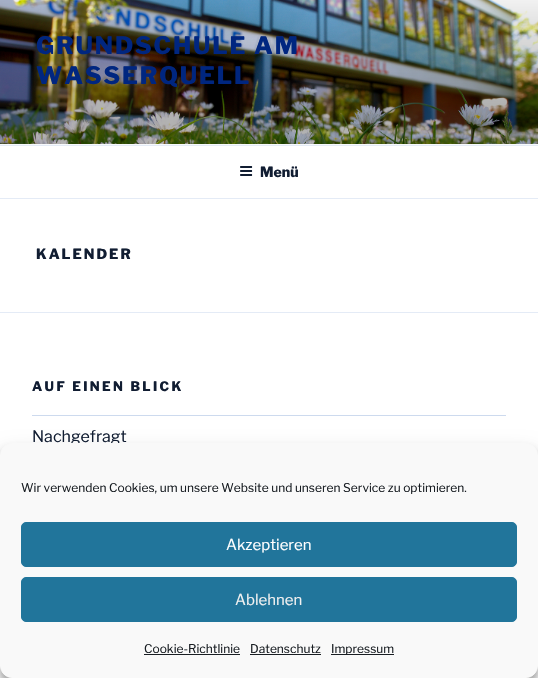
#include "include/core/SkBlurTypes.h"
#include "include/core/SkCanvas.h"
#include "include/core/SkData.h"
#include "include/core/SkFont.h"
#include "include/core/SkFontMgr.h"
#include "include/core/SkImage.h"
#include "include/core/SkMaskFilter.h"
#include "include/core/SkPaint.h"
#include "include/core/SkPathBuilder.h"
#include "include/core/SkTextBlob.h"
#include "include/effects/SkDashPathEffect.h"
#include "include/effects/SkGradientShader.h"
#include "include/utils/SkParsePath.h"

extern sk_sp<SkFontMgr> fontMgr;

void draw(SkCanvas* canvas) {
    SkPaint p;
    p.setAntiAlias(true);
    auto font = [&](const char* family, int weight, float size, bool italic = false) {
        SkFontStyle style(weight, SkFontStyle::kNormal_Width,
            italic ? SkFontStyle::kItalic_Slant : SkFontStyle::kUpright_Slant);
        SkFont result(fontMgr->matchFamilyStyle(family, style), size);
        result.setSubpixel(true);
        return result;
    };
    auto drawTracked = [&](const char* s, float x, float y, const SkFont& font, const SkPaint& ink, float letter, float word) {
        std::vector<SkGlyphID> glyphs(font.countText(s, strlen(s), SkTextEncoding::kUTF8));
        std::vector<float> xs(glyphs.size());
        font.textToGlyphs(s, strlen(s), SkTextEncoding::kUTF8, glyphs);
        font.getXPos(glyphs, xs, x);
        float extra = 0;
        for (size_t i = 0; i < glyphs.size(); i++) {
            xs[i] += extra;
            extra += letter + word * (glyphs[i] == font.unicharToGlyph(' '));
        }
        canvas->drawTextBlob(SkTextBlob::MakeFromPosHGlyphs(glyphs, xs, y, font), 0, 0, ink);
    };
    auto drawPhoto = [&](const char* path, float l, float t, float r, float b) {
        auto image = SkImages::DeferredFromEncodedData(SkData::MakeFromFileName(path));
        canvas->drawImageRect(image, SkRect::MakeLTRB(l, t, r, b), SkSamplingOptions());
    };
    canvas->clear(0xFFFFFFFF);
    p.setColor(0xFFF7F9FC);
    canvas->drawRect(SkRect::MakeLTRB(0, 144, 538, 145), p);
    drawPhoto("media/1.png", 0, 0, 538, 144);
    auto font1 = font("Libre Franklin", 100, 24);
    p.setColor(0xFF002680);
    drawTracked("GRUNDSCHULE AM", 36, 54, font1, p, 1.9f, 0);
    drawTracked("WASSERQUELL", 36, 84, font1, p, 1.9f, 0);
    p.setColor(0xFFE4EBF6);
    canvas->drawRect(SkRect::MakeLTRB(0, 145, 538, 146), p);
    canvas->drawRect(SkRect::MakeLTRB(0, 198, 538, 199), p);
    drawPhoto("media/2.png", 240, 166, 253, 176);
    auto font2 = font("Libre Franklin", 100, 14);
    p.setColor(0xFF111D32);
    canvas->drawString("Menü", 260, 177, font2, p);
    drawTracked("KALENDER", 36, 259, font2, p, 2, 0);
    p.setColor(0xFFE4EBF6);
    canvas->drawRect(SkRect::MakeLTRB(0, 312, 538, 313), p);
    auto font3 = font("Libre Franklin", 100, 13);
    p.setColor(0xFF111D32);
    drawTracked("AUF EINEN BLICK", 32, 391, font3, p, 2.4f, 0);
    p.setColor(0xFFCDDAEE);
    canvas->drawRect(SkRect::MakeLTRB(32, 415, 506, 416), p);
    auto font4 = font("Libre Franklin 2", 100, 16);
    p.setColor(0xFF111D32);
    canvas->drawString("Nachgefragt", 32, 442, font4, p);
    p.setColor(0x3B000000);
    p.setMaskFilter(SkMaskFilter::MakeBlur(kNormal_SkBlurStyle, 3));
    canvas->drawRoundRect(SkRect::MakeLTRB(0, 449, 538, 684), 12, 12, p);
    p.setMaskFilter(nullptr);
    p.setColor(0x30000000);
    p.setMaskFilter(SkMaskFilter::MakeBlur(kNormal_SkBlurStyle, 10));
    canvas->drawRoundRect(SkRect::MakeLTRB(0, 453, 538, 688), 12, 12, p);
    p.setMaskFilter(nullptr);
    p.setColor(0xFFF9F9F9);
    canvas->drawRoundRect(SkRect::MakeLTRB(0.5f, 443.5f, 537.5f, 677.5f), 11.5f, 11.5f, p);
    p.setStyle(SkPaint::kStroke_Style);
    p.setStrokeWidth(1);
    canvas->drawRoundRect(SkRect::MakeLTRB(0.5f, 443.5f, 537.5f, 677.5f), 11.5f, 11.5f, p);
    auto font5 = font("Libre Franklin 2", 100, 12);
    p.setStyle(SkPaint::kFill_Style);
    p.setColor(0xFF191E23);
    canvas->drawString("Wir verwenden Cookies, um unsere Website und unseren Service zu optimieren.", 21, 492, font5, p);
    p.setColor(0xFF21759B);
    canvas->drawRoundRect(SkRect::MakeLTRB(21.5f, 522.5f, 516.5f, 566.5f), 4.5f, 4.5f, p);
    p.setStyle(SkPaint::kStroke_Style);
    canvas->drawRoundRect(SkRect::MakeLTRB(21.5f, 522.5f, 516.5f, 566.5f), 4.5f, 4.5f, p);
    auto font6 = font("Libre Franklin 2", 100, 15);
    p.setStyle(SkPaint::kFill_Style);
    p.setColor(0xFFFFFFFF);
    canvas->drawString("Akzeptieren", 226, 550, font6, p);
    p.setColor(0xFF21759B);
    canvas->drawRoundRect(SkRect::MakeLTRB(21.5f, 577.5f, 516.5f, 621.5f), 4.5f, 4.5f, p);
    p.setStyle(SkPaint::kStroke_Style);
    canvas->drawRoundRect(SkRect::MakeLTRB(21.5f, 577.5f, 516.5f, 621.5f), 4.5f, 4.5f, p);
    p.setStyle(SkPaint::kFill_Style);
    p.setColor(0xFFF1F1F1);
    canvas->drawString("Ablehnen", 235, 605, font6, p);
    p.setColor(0xFF191E23);
    canvas->drawString("Cookie-Richtlinie", 144, 653, font5, p);
    canvas->drawRect(SkRect::MakeLTRB(144, 654, 240, 655), p);
    canvas->drawString("Datenschutz", 250, 653, font5, p);
    canvas->drawRect(SkRect::MakeLTRB(250, 654, 321, 655), p);
    canvas->drawRect(SkRect::MakeLTRB(331, 654, 394, 655), p);
    canvas->drawString("Impressum", 331, 653, font5, p);
}
